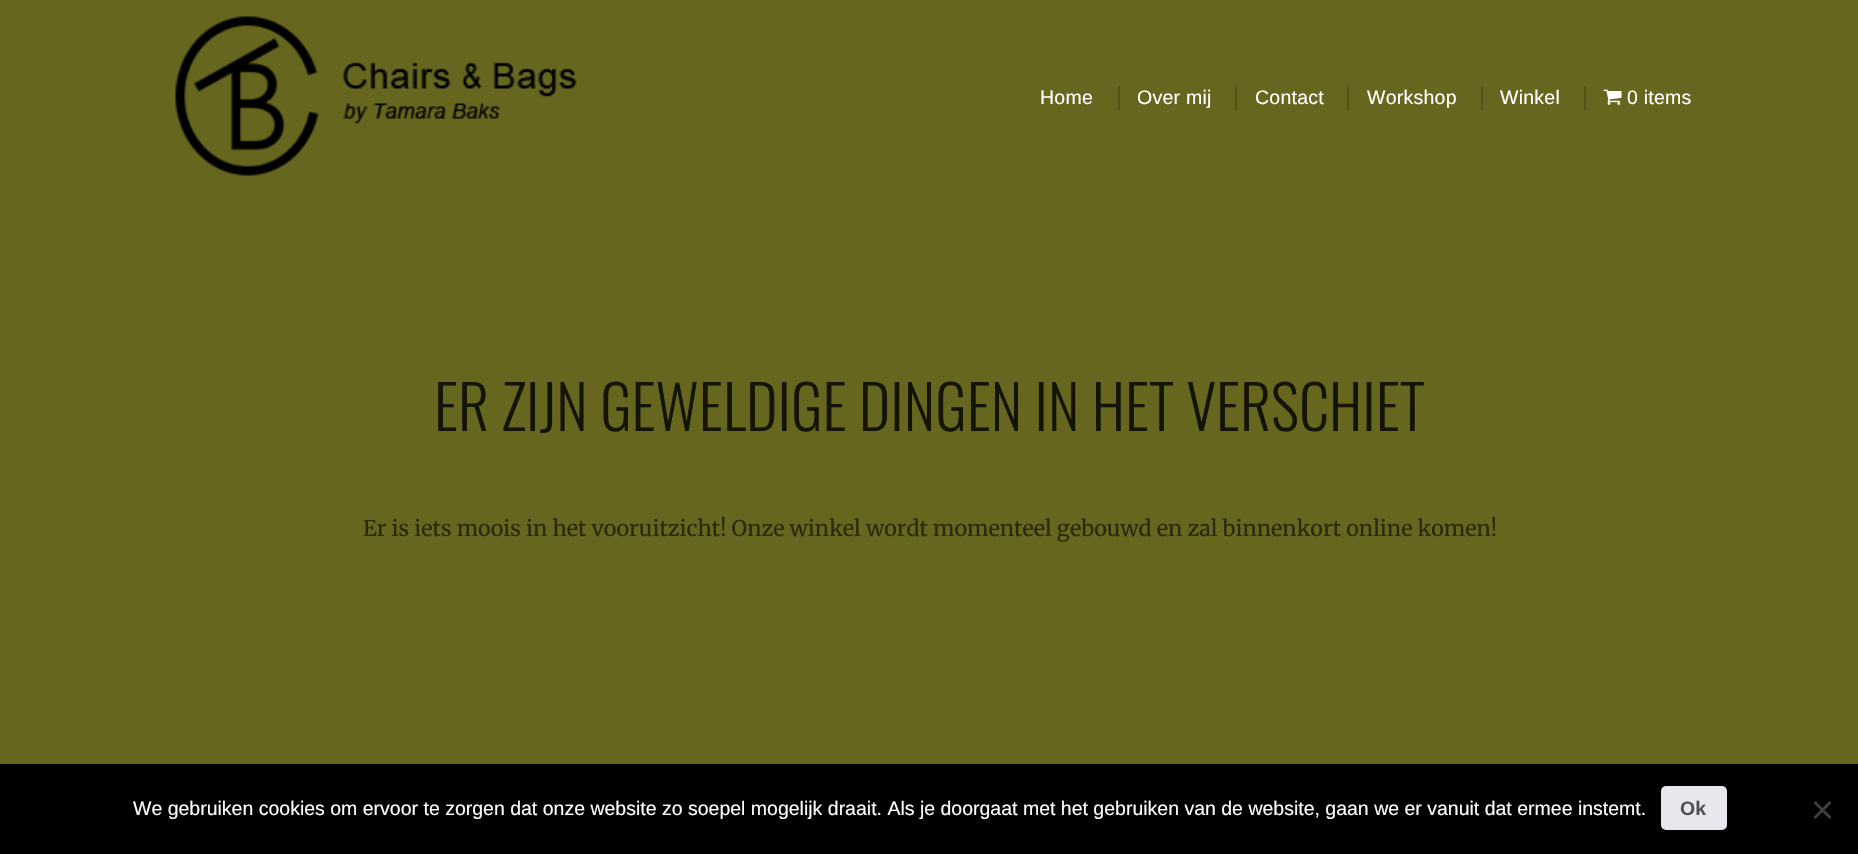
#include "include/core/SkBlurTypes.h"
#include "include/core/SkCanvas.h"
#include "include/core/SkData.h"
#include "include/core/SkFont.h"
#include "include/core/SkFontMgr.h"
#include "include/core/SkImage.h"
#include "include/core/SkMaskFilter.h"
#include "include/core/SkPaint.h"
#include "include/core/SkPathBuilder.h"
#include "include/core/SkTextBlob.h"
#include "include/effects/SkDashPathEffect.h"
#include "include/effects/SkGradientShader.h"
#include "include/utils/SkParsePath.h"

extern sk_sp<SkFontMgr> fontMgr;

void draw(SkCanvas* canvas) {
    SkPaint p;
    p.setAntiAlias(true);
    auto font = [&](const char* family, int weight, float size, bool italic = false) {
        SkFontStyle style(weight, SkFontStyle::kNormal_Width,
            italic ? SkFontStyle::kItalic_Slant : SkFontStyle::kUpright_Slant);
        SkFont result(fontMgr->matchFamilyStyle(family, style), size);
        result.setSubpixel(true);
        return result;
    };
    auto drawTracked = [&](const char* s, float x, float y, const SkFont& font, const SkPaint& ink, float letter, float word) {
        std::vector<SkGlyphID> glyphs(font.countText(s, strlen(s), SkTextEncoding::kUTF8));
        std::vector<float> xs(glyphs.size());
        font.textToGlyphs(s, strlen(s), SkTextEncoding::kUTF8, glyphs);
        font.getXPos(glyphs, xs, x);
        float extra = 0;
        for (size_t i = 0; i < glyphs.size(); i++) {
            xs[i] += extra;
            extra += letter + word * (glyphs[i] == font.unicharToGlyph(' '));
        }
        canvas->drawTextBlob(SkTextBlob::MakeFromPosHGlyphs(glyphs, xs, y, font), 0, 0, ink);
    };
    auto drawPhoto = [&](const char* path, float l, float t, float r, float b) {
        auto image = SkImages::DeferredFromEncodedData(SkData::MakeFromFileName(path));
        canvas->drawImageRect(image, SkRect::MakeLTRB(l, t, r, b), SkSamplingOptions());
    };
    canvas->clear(0xFF66661F);
    drawPhoto("media/1.png", 175, 16, 577, 176);
    auto font1 = font("Liberation Sans", 400, 19.5f);
    p.setColor(0xFFFFFFFF);
    drawTracked("Home", 1040, 104, font1, p, 0.25f, 0);
    p.setColor(0xFF525219);
    canvas->drawRect(SkRect::MakeLTRB(1118, 86, 1120, 110), p);
    p.setColor(0xFFFFFFFF);
    drawTracked("Over mij", 1137, 104, font1, p, 0.25f, 0);
    p.setColor(0xFF525219);
    canvas->drawRect(SkRect::MakeLTRB(1235, 86, 1237, 110), p);
    p.setColor(0xFFFFFFFF);
    drawTracked("Contact", 1255, 104, font1, p, 0.25f, 0);
    p.setColor(0xFF525219);
    canvas->drawRect(SkRect::MakeLTRB(1347, 86, 1349, 110), p);
    p.setColor(0xFFFFFFFF);
    drawTracked("Workshop", 1367, 104, font1, p, 0.25f, 0);
    p.setColor(0xFF525219);
    canvas->drawRect(SkRect::MakeLTRB(1481, 86, 1483, 110), p);
    p.setColor(0xFFFFFFFF);
    drawTracked("Winkel", 1500, 104, font1, p, 0.25f, 0);
    p.setColor(0xFF525219);
    canvas->drawRect(SkRect::MakeLTRB(1584, 86, 1586, 110), p);
    drawPhoto("media/2.png", 1603, 89, 1622, 105);
    p.setColor(0xFFFFFFFF);
    drawTracked("0 items", 1627, 104, font1, p, 0.25f, 0);
    auto font2 = font("Oswald", 300, 60.5f);
    p.setColor(0xFF141406);
    canvas->drawString("ER ZIJN GEWELDIGE DINGEN IN HET VERSCHIET", 434, 431, font2, p);
    auto font3 = font("Merriweather", 400, 21.6f);
    p.setColor(0xFF29290C);
    canvas->drawString("Er is iets moois in het vooruitzicht! Onze winkel wordt momenteel gebouwd en zal binnenkort online komen!", 363, 536, font3, p);
    p.setColor(0xFF000000);
    canvas->drawRect(SkRect::MakeLTRB(0, 764, 1858, 854), p);
    p.setColor(0xFFFFFFFF);
    canvas->drawString("We gebruiken cookies om ervoor te zorgen dat onze website zo soepel mogelijk draait. Als je doorgaat met het gebruiken van de website, gaan we er vanuit dat ermee instemt.", 133, 815, font1, p);
    p.setColor(0xFFE9E6ED);
    canvas->drawRoundRect(SkRect::MakeLTRB(1661, 786, 1727, 830), 5, 5, p);
    auto font4 = font("Liberation Sans", 700, 19.5f);
    p.setColor(0xFF515151);
    canvas->drawString("Ok", 1680, 815, font4, p);
    p.setColor(0xFF404040);
    canvas->drawPath(SkPathBuilder().moveTo(1829.5f, 801).lineTo(1831.5f, 803).lineTo(1815.5f, 819).lineTo(1813.5f, 817).close().detach(), p);
    canvas->drawPath(SkPathBuilder().moveTo(1813.5f, 803).lineTo(1815.5f, 801).lineTo(1831.5f, 817).lineTo(1829.5f, 819).close().detach(), p);
}
